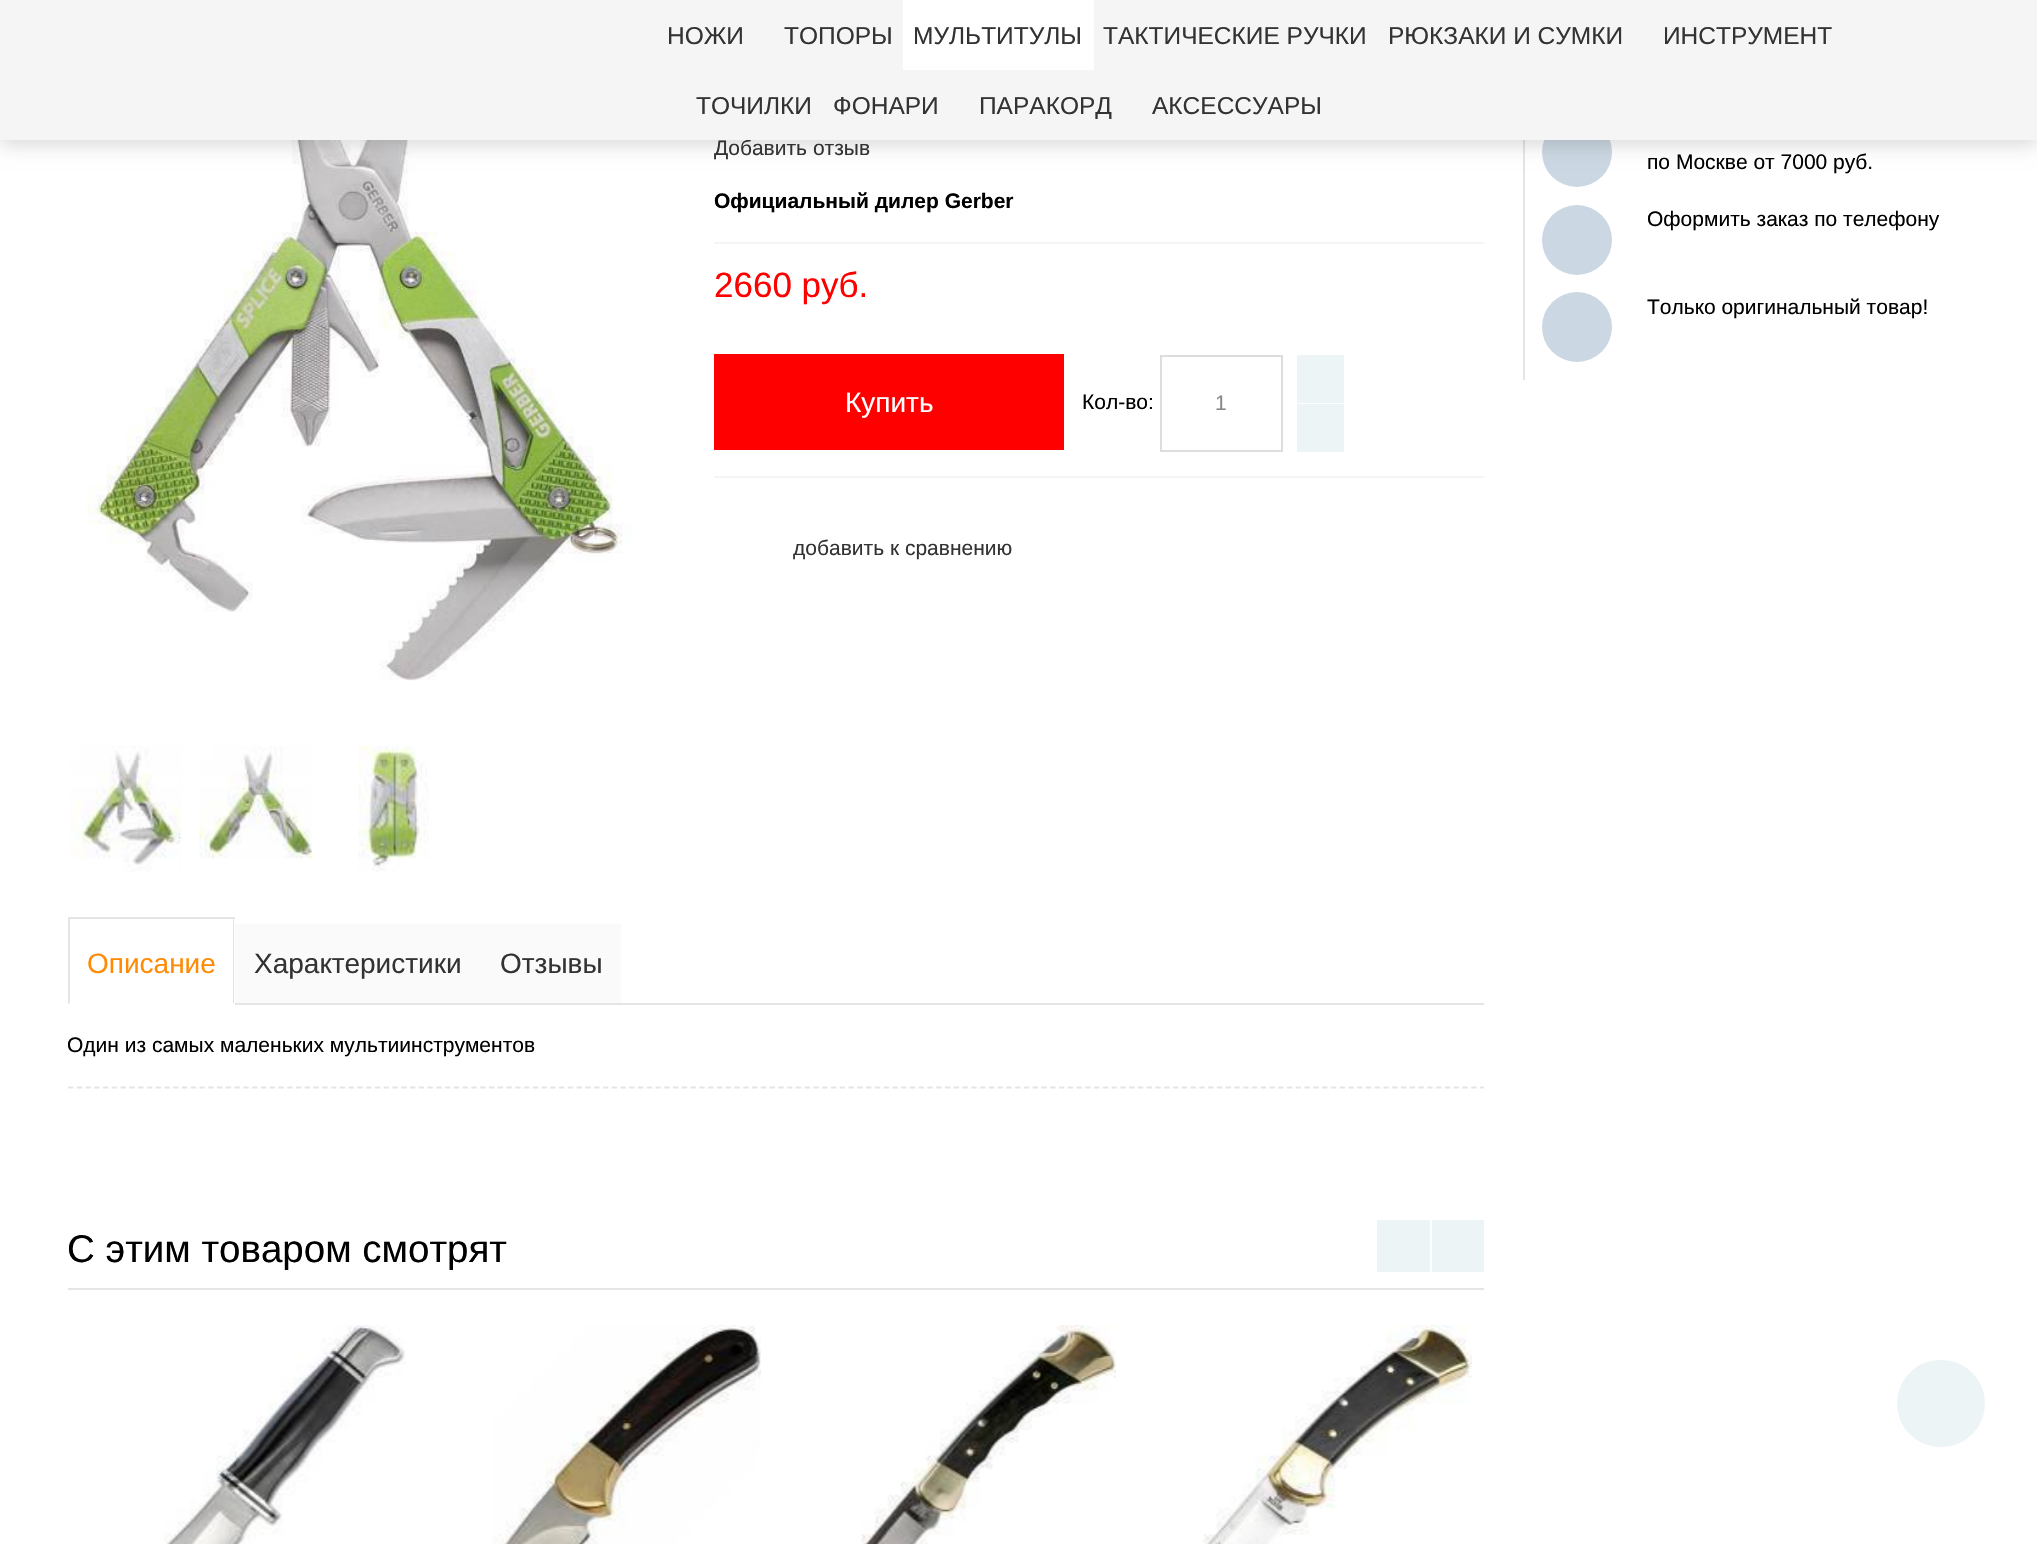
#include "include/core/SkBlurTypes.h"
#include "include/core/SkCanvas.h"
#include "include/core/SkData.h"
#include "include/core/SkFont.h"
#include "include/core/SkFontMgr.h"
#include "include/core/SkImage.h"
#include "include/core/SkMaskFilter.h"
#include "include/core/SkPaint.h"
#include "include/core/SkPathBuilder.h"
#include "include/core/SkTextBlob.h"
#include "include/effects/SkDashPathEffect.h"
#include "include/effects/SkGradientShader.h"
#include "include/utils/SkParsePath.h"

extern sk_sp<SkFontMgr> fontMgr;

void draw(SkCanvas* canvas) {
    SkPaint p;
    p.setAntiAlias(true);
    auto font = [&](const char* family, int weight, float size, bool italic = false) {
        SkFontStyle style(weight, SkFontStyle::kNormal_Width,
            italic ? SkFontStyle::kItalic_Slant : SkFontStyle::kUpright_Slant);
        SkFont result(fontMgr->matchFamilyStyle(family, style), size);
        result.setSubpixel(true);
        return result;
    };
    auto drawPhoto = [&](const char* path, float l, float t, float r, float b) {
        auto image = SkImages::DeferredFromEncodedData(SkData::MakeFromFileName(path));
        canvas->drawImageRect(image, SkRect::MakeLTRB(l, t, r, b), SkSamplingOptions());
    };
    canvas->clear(0xFFFFFFFF);
    drawPhoto("media/1.png", 87, 140, 632, 681);
    p.setColor(0xFFE5E5E5);
    canvas->drawRect(SkRect::MakeLTRB(1523, 140, 1525, 380), p);
    p.setColor(0xFFCBD7E2);
    canvas->drawCircle(1577, 152, 35, p);
    p.setColor(0x26000000);
    p.setMaskFilter(SkMaskFilter::MakeBlur(kNormal_SkBlurStyle, 9));
    canvas->drawRect(SkRect::MakeLTRB(0, 5, 2037, 145), p);
    p.setMaskFilter(nullptr);
    auto font1 = font("Liberation Sans", 400, 21);
    p.setColor(0xFF333333);
    canvas->drawString("Добавить отзыв", 714, 155, font1, p);
    p.setColor(0xFFF5F5F5);
    canvas->drawRect(SkRect::MakeLTRB(0, 0, 2037, 140), p);
    auto font2 = font("Liberation Sans", 400, 24.5f);
    p.setColor(0xFF333333);
    canvas->drawString("НОЖИ", 667, 44, font2, p);
    canvas->drawString("ТОПОРЫ", 784, 44, font2, p);
    p.setColor(0xFFFFFFFF);
    canvas->drawRect(SkRect::MakeLTRB(903, 0, 1094, 70), p);
    p.setColor(0xFF333333);
    {
        const struct { const char* s; float x, y; } items[] = {
            {"МУЛЬТИТУЛЫ", 913, 44},
            {"ТАКТИЧЕСКИЕ РУЧКИ", 1103, 44},
            {"РЮКЗАКИ И СУМКИ", 1388, 44},
            {"ИНСТРУМЕНТ", 1663, 44},
            {"ТОЧИЛКИ", 696, 114},
            {"ФОНАРИ", 833, 114},
            {"ПАРАКОРД", 979, 114},
            {"АКСЕССУАРЫ", 1152, 114},
        };
        for (auto [s, x, y] : items) {
            canvas->drawString(s, x, y, font2, p);
        }
    }
    drawPhoto("media/2.png", 70, 746, 182, 872);
    drawPhoto("media/3.png", 199, 746, 313, 859);
    drawPhoto("media/4.png", 358, 745, 429, 872);
    auto font3 = font("Liberation Sans", 700, 21);
    p.setColor(0xFF000000);
    canvas->drawString("Официальный дилер Gerber", 714, 208, font3, p);
    p.setColor(0xFFF5F5F5);
    canvas->drawRect(SkRect::MakeLTRB(714, 242, 1484, 244), p);
    auto font4 = font("Liberation Sans", 400, 35);
    p.setColor(0xFFFF0000);
    canvas->drawString("2660 руб.", 714, 297, font4, p);
    p.setColor(0xFFF5F5F5);
    canvas->drawRect(SkRect::MakeLTRB(714, 476, 1484, 478), p);
    p.setColor(0xFFFF0000);
    canvas->drawRect(SkRect::MakeLTRB(714, 354, 1064, 450), p);
    auto font5 = font("Liberation Sans", 400, 28);
    p.setColor(0xFFFFFFFF);
    canvas->drawString("Купить", 845, 412, font5, p);
    p.setColor(0xFF000000);
    canvas->drawString("Кол-во:", 1082, 409, font1, p);
    p.setStyle(SkPaint::kStroke_Style);
    p.setStrokeWidth(2);
    p.setColor(0xFFDDDDDD);
    canvas->drawRect(SkRect::MakeLTRB(1161, 356, 1282, 451), p);
    p.setStyle(SkPaint::kFill_Style);
    p.setColor(0xFF888888);
    canvas->drawString("1", 1215, 410, font1, p);
    p.setColor(0xFFEDF4F6);
    canvas->drawRect(SkRect::MakeLTRB(1297, 355, 1344, 403), p);
    canvas->drawRect(SkRect::MakeLTRB(1297, 404, 1344, 452), p);
    p.setColor(0xFF333333);
    canvas->drawString("добавить к сравнению", 793, 555, font1, p);
    p.setColor(0xFF000000);
    canvas->drawString("по Москве от 7000 руб.", 1647, 169, font1, p);
    p.setColor(0xFFCBD7E2);
    canvas->drawCircle(1577, 240, 35, p);
    p.setColor(0xFF000000);
    canvas->drawString("Оформить заказ по телефону", 1647, 226, font1, p);
    p.setColor(0xFFCBD7E2);
    canvas->drawCircle(1577, 327, 35, p);
    p.setColor(0xFF000000);
    canvas->drawString("Только оригинальный товар!", 1647, 314, font1, p);
    p.setColor(0xFFE5E5E5);
    canvas->drawRect(SkRect::MakeLTRB(68, 917, 235, 919), p);
    canvas->drawPath(SkPathBuilder().moveTo(234, 917).lineTo(234, 1004).lineTo(233, 1003).lineTo(233, 919).close().detach(), p);
    canvas->drawPath(SkPathBuilder().moveTo(68, 1004).lineTo(68, 917).lineTo(70, 919).lineTo(70, 1003).close().detach(), p);
    p.setColor(0xFFFF8B05);
    canvas->drawString("Описание", 87, 973, font5, p);
    p.setColor(0xFFFAFAFA);
    canvas->drawRect(SkRect::MakeLTRB(235, 924, 621, 1003), p);
    p.setColor(0xFF333333);
    canvas->drawString("Характеристики", 254, 973, font5, p);
    canvas->drawString("Отзывы", 500, 973, font5, p);
    p.setColor(0xFFE5E5E5);
    canvas->drawRect(SkRect::MakeLTRB(235, 1003, 1484, 1005), p);
    p.setStyle(SkPaint::kStroke_Style);
    p.setStrokeWidth(1.8f);
    p.setPathEffect(SkDashPathEffect::Make({{5.25f, 3.52f}}, 0));
    canvas->drawPath(SkPathBuilder().moveTo(68, 1087.5f).lineTo(1484, 1087.5f).detach(), p);
    p.setPathEffect(nullptr);
    p.setStyle(SkPaint::kFill_Style);
    p.setColor(0xFF000000);
    canvas->drawString("Один из самых маленьких мультиинструментов", 67, 1052, font1, p);
    p.setColor(0xFFEDF4F6);
    canvas->drawRect(SkRect::MakeLTRB(1377, 1220, 1430, 1272), p);
    canvas->drawRect(SkRect::MakeLTRB(1432, 1220, 1484, 1272), p);
    drawPhoto("media/5.png", 164, 1325, 406, 1544);
    drawPhoto("media/6.png", 493, 1325, 761, 1544);
    drawPhoto("media/7.png", 861, 1325, 1116, 1544);
    drawPhoto("media/8.png", 1203, 1325, 1472, 1544);
    p.setColor(0xFFE5E5E5);
    canvas->drawRect(SkRect::MakeLTRB(68, 1288, 1484, 1290), p);
    auto font6 = font("Liberation Sans", 400, 38.5f);
    p.setColor(0xFF000000);
    canvas->drawString("С этим товаром смотрят", 67, 1262, font6, p);
    p.setColor(0xFFEDF4F6);
    canvas->drawRoundRect(SkRect::MakeLTRB(1897, 1360, 1985, 1447), 43.5f, 43.5f, p);
}
